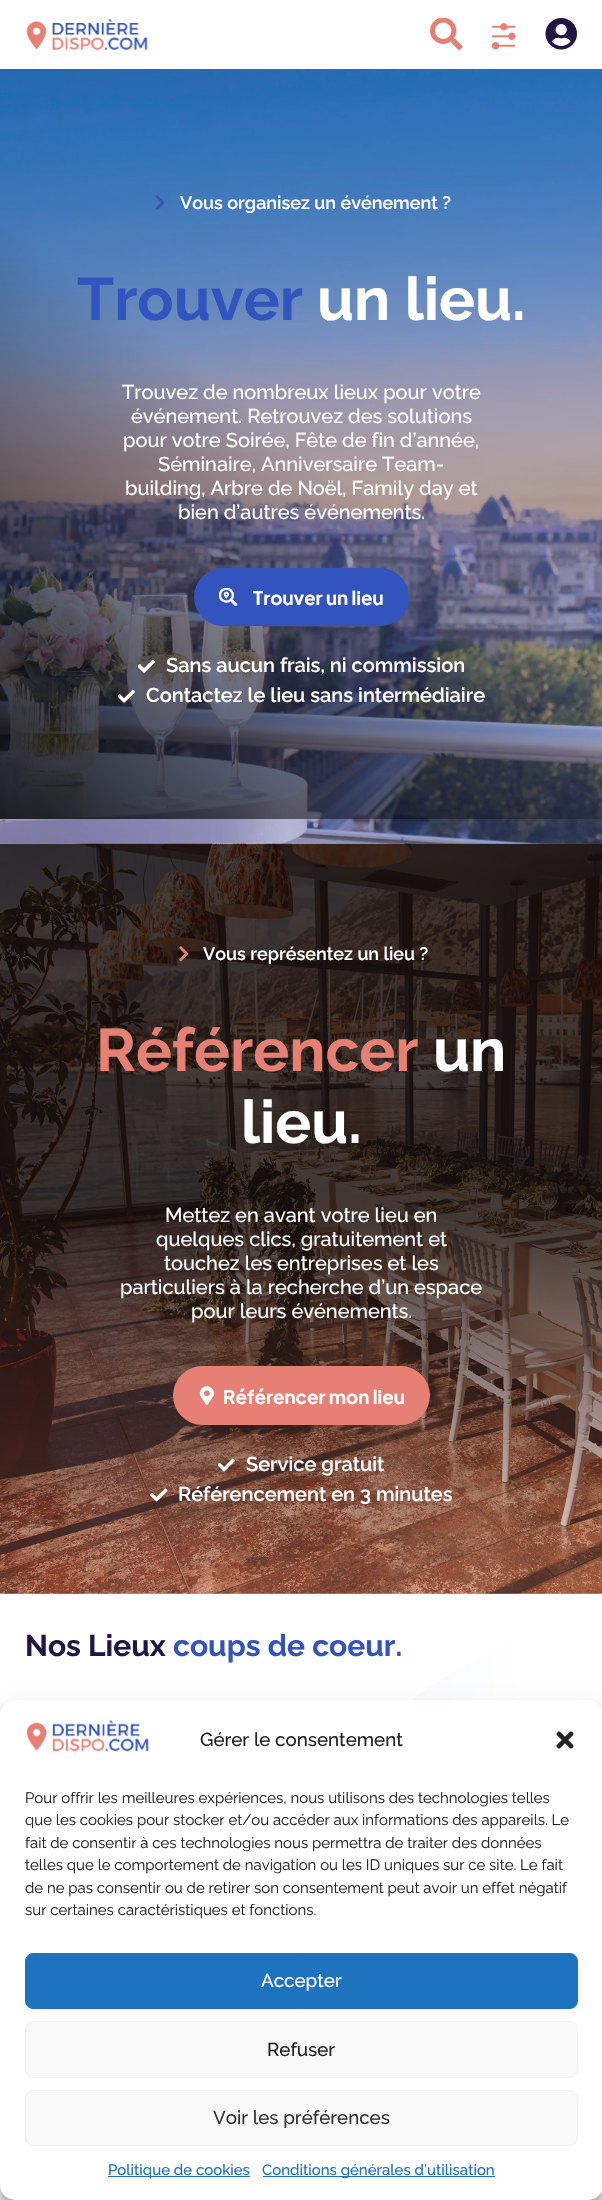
#include "include/core/SkBlurTypes.h"
#include "include/core/SkCanvas.h"
#include "include/core/SkData.h"
#include "include/core/SkFont.h"
#include "include/core/SkFontMgr.h"
#include "include/core/SkImage.h"
#include "include/core/SkMaskFilter.h"
#include "include/core/SkPaint.h"
#include "include/core/SkPathBuilder.h"
#include "include/core/SkTextBlob.h"
#include "include/effects/SkDashPathEffect.h"
#include "include/effects/SkGradientShader.h"
#include "include/utils/SkParsePath.h"

extern sk_sp<SkFontMgr> fontMgr;

void draw(SkCanvas* canvas) {
    SkPaint p;
    p.setAntiAlias(true);
    auto font = [&](const char* family, int weight, float size, bool italic = false) {
        SkFontStyle style(weight, SkFontStyle::kNormal_Width,
            italic ? SkFontStyle::kItalic_Slant : SkFontStyle::kUpright_Slant);
        SkFont result(fontMgr->matchFamilyStyle(family, style), size);
        result.setSubpixel(true);
        return result;
    };
    auto drawPhoto = [&](const char* path, float l, float t, float r, float b) {
        auto image = SkImages::DeferredFromEncodedData(SkData::MakeFromFileName(path));
        canvas->drawImageRect(image, SkRect::MakeLTRB(l, t, r, b), SkSamplingOptions());
    };
    canvas->clear(0xFFFFFFFF);
    drawPhoto("media/1.png", 26, 19, 148, 50);
    drawPhoto("media/2.png", 430, 18, 463, 50);
    drawPhoto("media/3.png", 491, 23, 516, 50);
    drawPhoto("media/4.png", 545, 18, 577, 50);
    drawPhoto("media/5.png", 0, 69, 602, 844);
    drawPhoto("media/6.png", 155, 195, 165, 210);
    auto font1 = font("Raleway", 600, 18);
    p.setColor(0xFFFFFFFF);
    canvas->drawString("Vous organisez un événement ?", 180, 209, font1, p);
    auto font2 = font("Raleway", 700, 60);
    p.setColor(0xFF3354BE);
    canvas->drawString("Trouver", 77, 320, font2, p);
    p.setColor(0xFFFFFFFF);
    canvas->drawString("un lieu.", 317, 320, font2, p);
    auto font3 = font("Raleway", 500, 20);
    {
        const struct { const char* s; float x, y; } items[] = {
            {"Trouvez de nombreux lieux pour votre", 122, 399},
            {"événement. Retrouvez des solutions", 131, 423},
            {"pour votre Soirée, Fête de fin d’année,", 123, 447},
            {"Séminaire, Anniversaire Team-", 158, 471},
            {"building, Arbre de Noël, Family day et", 125, 495},
            {"bien d’autres événements.", 178, 519},
        };
        for (auto [s, x, y] : items) {
            canvas->drawString(s, x, y, font3, p);
        }
    }
    p.setColor(0xFF3354BE);
    canvas->drawRoundRect(SkRect::MakeLTRB(194, 568, 409, 626), 29, 29, p);
    drawPhoto("media/7.png", 219, 588, 238, 606);
    auto font4 = font("Plus Jakarta Sans", 700, 18.75f);
    p.setColor(0xFFFFFFFF);
    canvas->drawString("Trouver un lieu", 253, 605, font4, p);
    drawPhoto("media/8.png", 138, 659, 155, 673);
    auto font5 = font("Raleway", 600, 20);
    canvas->drawString("Sans aucun frais, ni commission", 166, 672, font5, p);
    drawPhoto("media/9.png", 118, 689, 135, 703);
    canvas->drawString("Contactez le lieu sans intermédiaire", 146, 702, font5, p);
    drawPhoto("media/10.png", 0, 843, 602, 1594);
    p.setColor(0x4DE68074);
    canvas->drawRect(SkRect::MakeLTRB(0, 844, 602, 1594), p);
    {
        const SkColor colors[] = {0xB8000000, 0x00000000};
        const float stops[] = {0.5f, 1};
        const SkPoint ends[] = {{301, 844}, {301, 1594}};
        p.setShader(SkGradientShader::MakeLinear(ends, colors, stops, 2, SkTileMode::kClamp));
        p.setAlpha(255);
    }
    canvas->drawRect(SkRect::MakeLTRB(0, 844, 602, 1583), p);
    drawPhoto("media/11.png", 179, 946, 189, 962);
    p.setShader(nullptr);
    p.setColor(0xFFFFFFFF);
    canvas->drawString("Vous représentez un lieu ?", 203, 960, font1, p);
    p.setColor(0xFFE68074);
    canvas->drawString("Référencer", 96, 1071, font2, p);
    p.setColor(0xFFFFFFFF);
    canvas->drawString("un", 433, 1071, font2, p);
    canvas->drawString("lieu.", 241, 1143, font2, p);
    {
        const struct { const char* s; float x, y; } items[] = {
            {"Mettez en avant votre lieu en", 165, 1222},
            {"quelques clics, gratuitement et", 156, 1246},
            {"touchez les entreprises et les", 164, 1270},
            {"particuliers à la recherche d’un espace", 120, 1294},
            {"pour leurs événements.", 191, 1318},
        };
        for (auto [s, x, y] : items) {
            canvas->drawString(s, x, y, font3, p);
        }
    }
    p.setColor(0xFFE68074);
    canvas->drawRoundRect(SkRect::MakeLTRB(173, 1366, 430, 1425), 29.5f, 29.5f, p);
    drawPhoto("media/12.png", 199, 1386, 214, 1405);
    p.setColor(0xFFFFFFFF);
    canvas->drawString("Référencer mon lieu", 223, 1404, font4, p);
    drawPhoto("media/13.png", 218, 1458, 235, 1472);
    canvas->drawString("Service gratuit", 246, 1471, font5, p);
    drawPhoto("media/14.png", 150, 1488, 168, 1502);
    canvas->drawString("Référencement en 3 minutes", 178, 1501, font5, p);
    {
        const SkColor colors[] = {0xFFF1F4FB, 0xFFFFFFFF};
        const float stops[] = {0, 1};
        const SkPoint ends[] = {{340, 2126}, {572, 2100}};
        p.setShader(SkGradientShader::MakeLinear(ends, colors, stops, 2, SkTileMode::kClamp));
        p.setAlpha(255);
    }
    canvas->drawPath(SkPathBuilder().moveTo(299, 1836).cubicTo(398, 1640, 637, 1563, 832, 1662).cubicTo(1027, 1762, 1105, 2001, 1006, 2196).cubicTo(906, 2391, 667, 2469, 472, 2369).cubicTo(277, 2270, 199, 2031, 299, 1836).close().detach(), p);
    auto font6 = font("Raleway", 700, 30);
    p.setShader(nullptr);
    p.setColor(0xFF221544);
    canvas->drawString("Nos Lieux", 25, 1656, font6, p);
    p.setColor(0xFF3354BE);
    canvas->drawString("coups de coeur.", 173, 1656, font6, p);
    p.setColor(0x3B000000);
    p.setMaskFilter(SkMaskFilter::MakeBlur(kNormal_SkBlurStyle, 4));
    canvas->drawRoundRect(SkRect::MakeLTRB(0, 1708, 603, 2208), 15, 15, p);
    p.setMaskFilter(nullptr);
    p.setColor(0x30000000);
    p.setMaskFilter(SkMaskFilter::MakeBlur(kNormal_SkBlurStyle, 12.5f));
    canvas->drawRoundRect(SkRect::MakeLTRB(0, 1713, 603, 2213), 15, 15, p);
    p.setMaskFilter(nullptr);
    p.setColor(0xFFFFFFFF);
    canvas->drawRoundRect(SkRect::MakeLTRB(0, 1700, 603, 2200), 15, 15, p);
    drawPhoto("media/15.png", 26, 1720, 149, 1752);
    auto font7 = font("Raleway", 500, 18.75f);
    p.setColor(0xFF222222);
    canvas->drawString("Gérer le consentement", 200, 1746, font7, p);
    drawPhoto("media/16.png", 556, 1731, 574, 1749);
    auto font8 = font("Raleway", 400, 15);
    {
        const struct { const char* s; float x, y; } items[] = {
            {"Pour offrir les meilleures expériences, nous utilisons des technologies telles", 25, 1803},
            {"que les cookies pour stocker et/ou accéder aux informations des appareils. Le", 25, 1825},
            {"fait de consentir à ces technologies nous permettra de traiter des données", 25, 1848},
            {"telles que le comportement de navigation ou les ID uniques sur ce site. Le fait", 25, 1870},
            {"de ne pas consentir ou de retirer son consentement peut avoir un effet négatif", 25, 1893},
            {"sur certaines caractéristiques et fonctions.", 25, 1915},
        };
        for (auto [s, x, y] : items) {
            canvas->drawString(s, x, y, font8, p);
        }
    }
    p.setColor(0xFF1E73BE);
    canvas->drawRoundRect(SkRect::MakeLTRB(25.5f, 1953.5f, 577.5f, 2008.5f), 7.5f, 7.5f, p);
    p.setStyle(SkPaint::kStroke_Style);
    p.setStrokeWidth(1);
    canvas->drawRoundRect(SkRect::MakeLTRB(25.5f, 1953.5f, 577.5f, 2008.5f), 7.5f, 7.5f, p);
    p.setStyle(SkPaint::kFill_Style);
    p.setColor(0xFFFFFFFF);
    canvas->drawString("Accepter", 261, 1987, font7, p);
    p.setColor(0xFFF9F9F9);
    canvas->drawRoundRect(SkRect::MakeLTRB(25.5f, 2021.5f, 577.5f, 2077.5f), 7.5f, 7.5f, p);
    p.setStyle(SkPaint::kStroke_Style);
    p.setColor(0xFFF2F2F2);
    canvas->drawRoundRect(SkRect::MakeLTRB(25.5f, 2021.5f, 577.5f, 2077.5f), 7.5f, 7.5f, p);
    p.setStyle(SkPaint::kFill_Style);
    p.setColor(0xFF222222);
    canvas->drawString("Refuser", 267, 2056, font7, p);
    p.setColor(0xFFF9F9F9);
    canvas->drawRoundRect(SkRect::MakeLTRB(25.5f, 2090.5f, 577.5f, 2145.5f), 7.5f, 7.5f, p);
    p.setStyle(SkPaint::kStroke_Style);
    p.setColor(0xFFF2F2F2);
    canvas->drawRoundRect(SkRect::MakeLTRB(25.5f, 2090.5f, 577.5f, 2145.5f), 7.5f, 7.5f, p);
    p.setStyle(SkPaint::kFill_Style);
    p.setColor(0xFF333333);
    canvas->drawString("Voir les préférences", 213, 2124, font7, p);
    p.setColor(0xFF1E73BE);
    canvas->drawRect(SkRect::MakeLTRB(108, 2176, 250, 2177), p);
    auto font9 = font("Raleway", 500, 15);
    canvas->drawString("Politique de cookies", 108, 2175, font9, p);
    canvas->drawRect(SkRect::MakeLTRB(263, 2176, 495, 2177), p);
    canvas->drawString("Conditions générales d’utilisation", 262, 2175, font9, p);
}
